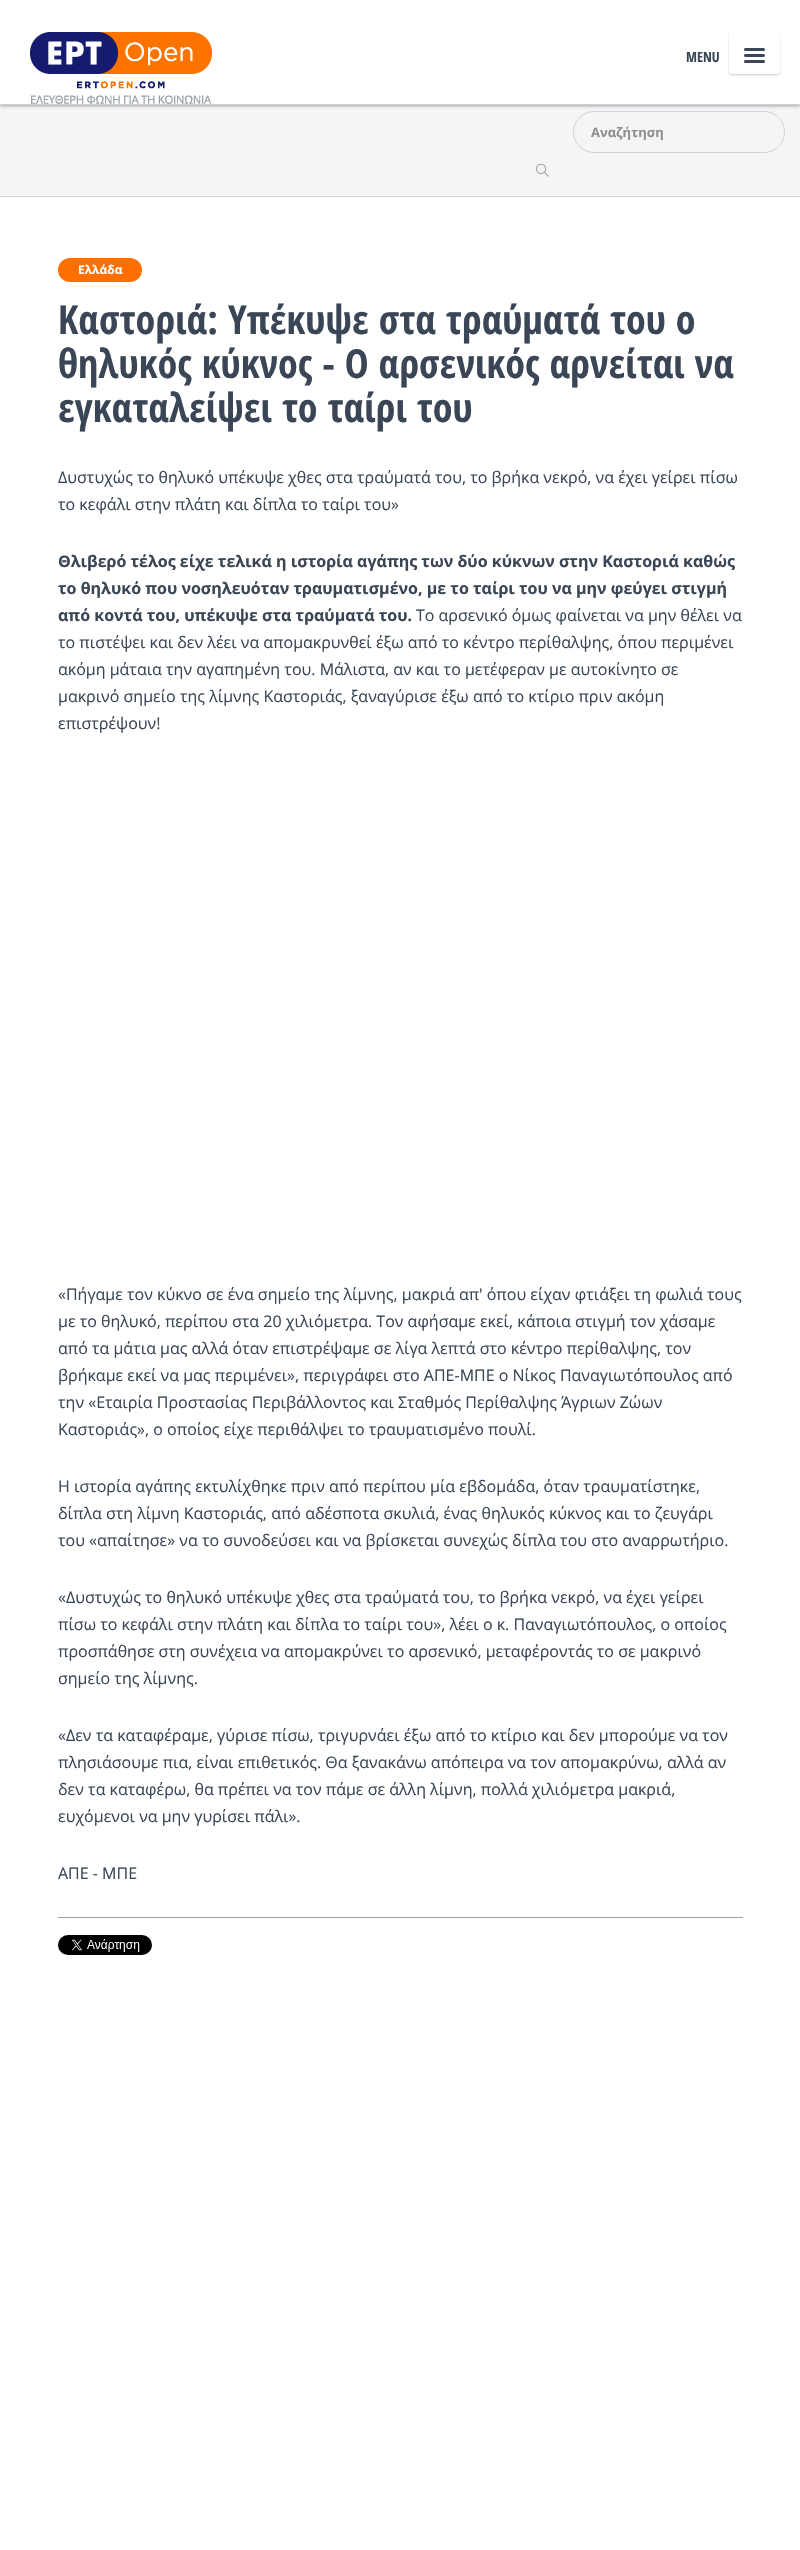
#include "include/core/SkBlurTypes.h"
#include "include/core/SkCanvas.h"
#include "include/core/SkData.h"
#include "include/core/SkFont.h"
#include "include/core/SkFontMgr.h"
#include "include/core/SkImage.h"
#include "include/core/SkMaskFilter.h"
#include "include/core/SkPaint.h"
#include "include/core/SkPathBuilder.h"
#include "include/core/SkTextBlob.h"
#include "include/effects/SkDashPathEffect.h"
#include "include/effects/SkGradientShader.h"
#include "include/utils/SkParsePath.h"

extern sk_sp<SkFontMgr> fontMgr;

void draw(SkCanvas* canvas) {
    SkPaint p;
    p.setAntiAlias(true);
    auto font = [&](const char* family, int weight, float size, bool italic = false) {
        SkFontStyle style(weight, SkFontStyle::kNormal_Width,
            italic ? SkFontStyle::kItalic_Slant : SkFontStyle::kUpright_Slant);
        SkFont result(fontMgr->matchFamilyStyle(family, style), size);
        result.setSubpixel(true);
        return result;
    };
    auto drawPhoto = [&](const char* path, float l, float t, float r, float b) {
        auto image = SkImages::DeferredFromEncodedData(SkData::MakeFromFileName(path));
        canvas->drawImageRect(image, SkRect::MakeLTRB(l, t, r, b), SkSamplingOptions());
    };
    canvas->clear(0xFFF5F5F5);
    p.setStyle(SkPaint::kStroke_Style);
    p.setStrokeWidth(1);
    p.setColor(0xFFD0D2D5);
    canvas->drawRoundRect(SkRect::MakeLTRB(573.5f, 111.5f, 784.5f, 152.5f), 20.5f, 20.5f, p);
    p.setStyle(SkPaint::kFill_Style);
    p.setColor(0xBF3A4656);
    p.setMaskFilter(SkMaskFilter::MakeBlur(kNormal_SkBlurStyle, 2));
    canvas->drawRect(SkRect::MakeLTRB(0, 0, 800, 105), p);
    p.setMaskFilter(nullptr);
    p.setColor(0xFFFFFFFF);
    canvas->drawRect(SkRect::MakeLTRB(0, 0, 800, 104), p);
    p.setColor(0xFFD0D2D5);
    canvas->drawRect(SkRect::MakeLTRB(0, 104, 800, 105), p);
    drawPhoto("media/1.png", 30, 32, 212, 104);
    auto font1 = font("Open Sans Condensed", 700, 14);
    p.setColor(0xFF3A4656);
    canvas->drawString("MENU", 686, 62, font1, p);
    p.setColor(0x4A3A4656);
    p.setMaskFilter(SkMaskFilter::MakeBlur(kNormal_SkBlurStyle, 1));
    canvas->drawRoundRect(SkRect::MakeLTRB(729, 33, 780, 75), 3, 3, p);
    p.setMaskFilter(nullptr);
    p.setColor(0xFFFFFFFF);
    canvas->drawRoundRect(SkRect::MakeLTRB(729, 32, 780, 74), 3, 3, p);
    drawPhoto("media/2.png", 744, 48, 765, 63);
    p.setColor(0xFFD0D2D5);
    canvas->drawRect(SkRect::MakeLTRB(0, 196, 800, 197), p);
    auto font2 = font("Open Sans", 700, 13);
    p.setColor(0xFF8E8E8E);
    canvas->drawString("Αναζήτηση", 591, 137, font2, p);
    drawPhoto("media/3.png", 536, 163, 549, 177);
    p.setColor(0xFFFFFFFF);
    canvas->drawRect(SkRect::MakeLTRB(0, 197, 800, 2550), p);
    p.setColor(0xFFFF6F00);
    canvas->drawRoundRect(SkRect::MakeLTRB(58, 258, 142, 282), 12, 12, p);
    auto font3 = font("Open Sans", 700, 12);
    p.setColor(0xFFFFFFFF);
    canvas->drawString("Ελλάδα", 78, 274, font3, p);
    auto font4 = font("Open Sans Condensed", 700, 40);
    p.setColor(0xFF3A4656);
    {
        const struct { const char* s; float x, y; } items[] = {
            {"Καστοριά: Υπέκυψε στα τραύματά του ο", 58, 334},
            {"θηλυκός κύκνος - Ο αρσενικός αρνείται να", 58, 378},
            {"εγκαταλείψει το ταίρι του", 58, 422},
        };
        for (auto [s, x, y] : items) {
            canvas->drawString(s, x, y, font4, p);
        }
    }
    auto font5 = font("Open Sans", 400, 16);
    canvas->drawString("Δυστυχώς το θηλυκό υπέκυψε χθες στα τραύματά του, το βρήκα νεκρό, να έχει γείρει πίσω", 58, 483, font5, p);
    canvas->drawString("το κεφάλι στην πλάτη και δίπλα το ταίρι του»", 58, 510, font5, p);
    auto font6 = font("Open Sans", 700, 16);
    {
        const struct { const char* s; float x, y; } items[] = {
            {"Θλιβερό τέλος είχε τελικά η ιστορία αγάπης των δύο κύκνων στην Καστοριά καθώς", 58, 567},
            {"το θηλυκό που νοσηλευόταν τραυματισμένο, με το ταίρι του να μην φεύγει στιγμή", 58, 594},
            {"από κοντά του, υπέκυψε στα τραύματά του.", 58, 621},
        };
        for (auto [s, x, y] : items) {
            canvas->drawString(s, x, y, font6, p);
        }
    }
    {
        const struct { const char* s; float x, y; } items[] = {
            {"Το αρσενικό όμως φαίνεται να μην θέλει να", 416, 621},
            {"το πιστέψει και δεν λέει να απομακρυνθεί έξω από το κέντρο περίθαλψης, όπου περιμένει", 58, 648},
            {"ακόμη μάταια την αγαπημένη του. Μάλιστα, αν και το μετέφεραν με αυτοκίνητο σε", 58, 675},
            {"μακρινό σημείο της λίμνης Καστοριάς, ξαναγύρισε έξω από το κτίριο πριν ακόμη", 58, 702},
            {"επιστρέψουν!", 58, 729},
            {"«Πήγαμε τον κύκνο σε ένα σημείο της λίμνης, μακριά απ' όπου είχαν φτιάξει τη φωλιά τους", 58, 1300},
            {"με το θηλυκό, περίπου στα 20 χιλιόμετρα. Τον αφήσαμε εκεί, κάποια στιγμή τον χάσαμε", 58, 1327},
            {"από τα μάτια μας αλλά όταν επιστρέψαμε σε λίγα λεπτά στο κέντρο περίθαλψης, τον", 58, 1354},
            {"βρήκαμε εκεί να μας περιμένει», περιγράφει στο ΑΠΕ-ΜΠΕ ο Νίκος Παναγιωτόπουλος από", 58, 1381},
            {"την «Εταιρία Προστασίας Περιβάλλοντος και Σταθμός Περίθαλψης Άγριων Ζώων", 58, 1408},
            {"Καστοριάς», ο οποίος είχε περιθάλψει το τραυματισμένο πουλί.", 58, 1435},
            {"Η ιστορία αγάπης εκτυλίχθηκε πριν από περίπου μία εβδομάδα, όταν τραυματίστηκε,", 58, 1492},
            {"δίπλα στη λίμνη Καστοριάς, από αδέσποτα σκυλιά, ένας θηλυκός κύκνος και το ζευγάρι", 58, 1519},
            {"του «απαίτησε» να το συνοδεύσει και να βρίσκεται συνεχώς δίπλα του στο αναρρωτήριο.", 58, 1546},
            {"«Δυστυχώς το θηλυκό υπέκυψε χθες στα τραύματά του, το βρήκα νεκρό, να έχει γείρει", 58, 1603},
            {"πίσω το κεφάλι στην πλάτη και δίπλα το ταίρι του», λέει ο κ. Παναγιωτόπουλος, ο οποίος", 58, 1630},
            {"προσπάθησε στη συνέχεια να απομακρύνει το αρσενικό, μεταφέροντάς το σε μακρινό", 58, 1657},
            {"σημείο της λίμνης.", 58, 1684},
            {"«Δεν τα καταφέραμε, γύρισε πίσω, τριγυρνάει έξω από το κτίριο και δεν μπορούμε να τον", 58, 1741},
            {"πλησιάσουμε πια, είναι επιθετικός. Θα ξανακάνω απόπειρα να τον απομακρύνω, αλλά αν", 58, 1768},
            {"δεν τα καταφέρω, θα πρέπει να τον πάμε σε άλλη λίμνη, πολλά χιλιόμετρα μακριά,", 58, 1795},
            {"ευχόμενοι να μην γυρίσει πάλι».", 58, 1822},
            {"ΑΠΕ - ΜΠΕ", 58, 1879},
        };
        for (auto [s, x, y] : items) {
            canvas->drawString(s, x, y, font5, p);
        }
    }
    p.setColor(0xFF9AA0A8);
    canvas->drawRect(SkRect::MakeLTRB(58, 1917, 743, 1918), p);
    drawPhoto("media/4.png", 58, 1935, 152, 1955);
}
